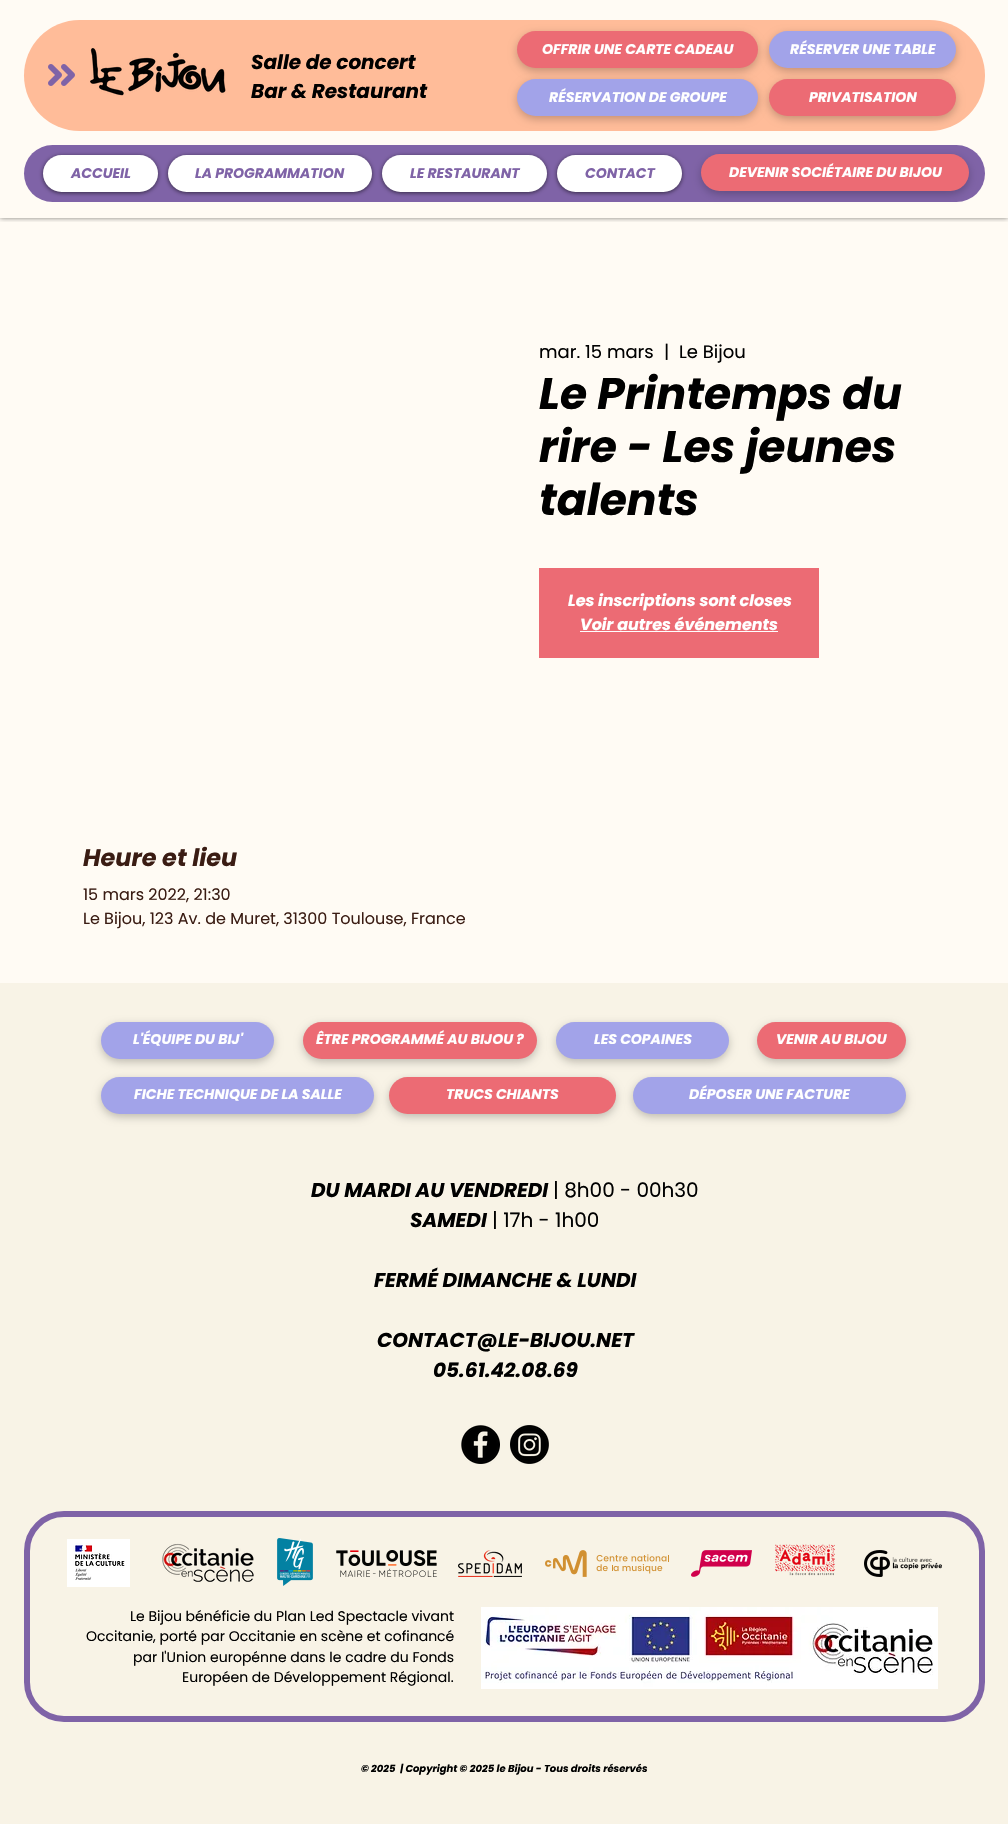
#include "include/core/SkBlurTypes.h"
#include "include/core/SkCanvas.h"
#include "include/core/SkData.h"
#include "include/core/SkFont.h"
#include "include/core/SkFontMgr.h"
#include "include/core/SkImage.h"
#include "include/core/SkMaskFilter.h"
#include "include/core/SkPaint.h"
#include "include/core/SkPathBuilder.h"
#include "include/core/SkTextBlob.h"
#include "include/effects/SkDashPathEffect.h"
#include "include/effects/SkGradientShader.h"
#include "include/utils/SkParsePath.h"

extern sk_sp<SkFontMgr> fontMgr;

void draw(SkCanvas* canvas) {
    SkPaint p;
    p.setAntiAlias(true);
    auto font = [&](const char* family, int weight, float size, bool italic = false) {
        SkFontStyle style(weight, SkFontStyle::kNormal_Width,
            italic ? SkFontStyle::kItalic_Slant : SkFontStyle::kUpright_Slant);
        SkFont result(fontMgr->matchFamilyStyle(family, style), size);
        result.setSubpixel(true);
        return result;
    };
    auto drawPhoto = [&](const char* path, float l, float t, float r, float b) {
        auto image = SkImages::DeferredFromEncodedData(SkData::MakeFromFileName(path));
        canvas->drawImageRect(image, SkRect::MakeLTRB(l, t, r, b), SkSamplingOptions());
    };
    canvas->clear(0xFFFFFBF4);
    canvas->save();
    canvas->clipRect(SkRect::MakeLTRB(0, 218, 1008, 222));
    p.setColor(0x80000000);
    p.setMaskFilter(SkMaskFilter::MakeBlur(kNormal_SkBlurStyle, 2.5f));
    canvas->drawRect(SkRect::MakeLTRB(0, 0, 1008, 218), p);
    p.setMaskFilter(nullptr);
    canvas->restore();
    p.setColor(0xFFFFBC99);
    canvas->drawRoundRect(SkRect::MakeLTRB(24, 20, 985, 131), 55.5f, 55.5f, p);
    drawPhoto("media/2.png", 61, 64, 75, 86);
    drawPhoto("media/1.png", 48, 64, 62, 86);
    drawPhoto("media/3.png", 90, 48, 226, 96);
    auto font1 = font("Poppins", 700, 20, true);
    p.setColor(0xFF000000);
    canvas->drawString("Salle de concert", 251, 69, font1, p);
    canvas->drawString("Bar & Restaurant", 251, 98, font1, p);
    p.setColor(0x3B000000);
    p.setMaskFilter(SkMaskFilter::MakeBlur(kNormal_SkBlurStyle, 4.5f));
    canvas->drawRoundRect(SkRect::MakeLTRB(517, 34, 758, 71), 18.5f, 18.5f, p);
    p.setMaskFilter(nullptr);
    p.setColor(0xFFEC6B74);
    canvas->drawRoundRect(SkRect::MakeLTRB(517, 31, 758, 68), 18.5f, 18.5f, p);
    auto font2 = font("Poppins", 700, 14, true);
    p.setColor(0xFFFFFFFF);
    canvas->drawString("OFFRIR UNE CARTE CADEAU", 542, 54, font2, p);
    p.setColor(0x3B000000);
    p.setMaskFilter(SkMaskFilter::MakeBlur(kNormal_SkBlurStyle, 4.5f));
    canvas->drawRoundRect(SkRect::MakeLTRB(769, 34, 956, 71), 18.5f, 18.5f, p);
    p.setMaskFilter(nullptr);
    p.setColor(0xFFA2A3E9);
    canvas->drawRoundRect(SkRect::MakeLTRB(769, 31, 956, 68), 18.5f, 18.5f, p);
    p.setColor(0xFFFFFFFF);
    canvas->drawString("RÉSERVER UNE TABLE", 790, 54, font2, p);
    p.setColor(0x3B000000);
    p.setMaskFilter(SkMaskFilter::MakeBlur(kNormal_SkBlurStyle, 4.5f));
    canvas->drawRoundRect(SkRect::MakeLTRB(517, 82, 758, 119), 18.5f, 18.5f, p);
    p.setMaskFilter(nullptr);
    p.setColor(0xFFA2A3E9);
    canvas->drawRoundRect(SkRect::MakeLTRB(517, 79, 758, 116), 18.5f, 18.5f, p);
    p.setColor(0xFFFFFFFF);
    canvas->drawString("RÉSERVATION DE GROUPE", 549, 102, font2, p);
    p.setColor(0x3B000000);
    p.setMaskFilter(SkMaskFilter::MakeBlur(kNormal_SkBlurStyle, 4.5f));
    canvas->drawRoundRect(SkRect::MakeLTRB(769, 82, 956, 119), 18.5f, 18.5f, p);
    p.setMaskFilter(nullptr);
    p.setColor(0xFFEC6B74);
    canvas->drawRoundRect(SkRect::MakeLTRB(769, 79, 956, 116), 18.5f, 18.5f, p);
    p.setColor(0xFFFFFFFF);
    canvas->drawString("PRIVATISATION", 809, 102, font2, p);
    p.setColor(0xFF7F63A7);
    canvas->drawRoundRect(SkRect::MakeLTRB(24, 145, 985, 202), 28.5f, 28.5f, p);
    p.setColor(0x99000000);
    p.setMaskFilter(SkMaskFilter::MakeBlur(kNormal_SkBlurStyle, 2));
    canvas->drawRoundRect(SkRect::MakeLTRB(43, 156, 158, 193), 18.5f, 18.5f, p);
    p.setMaskFilter(nullptr);
    p.setColor(0xFFFFFFFF);
    canvas->drawRoundRect(SkRect::MakeLTRB(43, 155, 158, 192), 18.5f, 18.5f, p);
    p.setColor(0xFF7F63A7);
    canvas->drawString("ACCUEIL", 71, 178, font2, p);
    p.setColor(0x99000000);
    p.setMaskFilter(SkMaskFilter::MakeBlur(kNormal_SkBlurStyle, 2));
    canvas->drawRoundRect(SkRect::MakeLTRB(168, 156, 372, 193), 18.5f, 18.5f, p);
    p.setMaskFilter(nullptr);
    p.setColor(0xFFFFFFFF);
    canvas->drawRoundRect(SkRect::MakeLTRB(168, 155, 372, 192), 18.5f, 18.5f, p);
    p.setColor(0xFF7F63A7);
    canvas->drawString("LA PROGRAMMATION", 195, 178, font2, p);
    p.setColor(0x99000000);
    p.setMaskFilter(SkMaskFilter::MakeBlur(kNormal_SkBlurStyle, 2));
    canvas->drawRoundRect(SkRect::MakeLTRB(382, 156, 547, 193), 18.5f, 18.5f, p);
    p.setMaskFilter(nullptr);
    p.setColor(0xFFFFFFFF);
    canvas->drawRoundRect(SkRect::MakeLTRB(382, 155, 547, 192), 18.5f, 18.5f, p);
    p.setColor(0xFF7F63A7);
    canvas->drawString("LE RESTAURANT", 410, 178, font2, p);
    p.setColor(0x99000000);
    p.setMaskFilter(SkMaskFilter::MakeBlur(kNormal_SkBlurStyle, 2));
    canvas->drawRoundRect(SkRect::MakeLTRB(557, 156, 682, 193), 18.5f, 18.5f, p);
    p.setMaskFilter(nullptr);
    p.setColor(0xFFFFFFFF);
    canvas->drawRoundRect(SkRect::MakeLTRB(557, 155, 682, 192), 18.5f, 18.5f, p);
    p.setColor(0xFF7F63A7);
    canvas->drawString("CONTACT", 585, 178, font2, p);
    p.setColor(0x3B000000);
    p.setMaskFilter(SkMaskFilter::MakeBlur(kNormal_SkBlurStyle, 4.5f));
    canvas->drawRoundRect(SkRect::MakeLTRB(701, 157, 969, 194), 18.5f, 18.5f, p);
    p.setMaskFilter(nullptr);
    p.setColor(0xFFEC6B74);
    canvas->drawRoundRect(SkRect::MakeLTRB(701, 154, 969, 191), 18.5f, 18.5f, p);
    p.setColor(0xFFFFFFFF);
    canvas->drawString("DEVENIR SOCIÉTAIRE DU BIJOU", 729, 177, font2, p);
    auto font3 = font("Poppins", 400, 18);
    p.setColor(0xFF000000);
    {
        const struct { const char* s; float x, y; } items[] = {
            {"mar. 15 mars", 539, 358},
            {"|", 664, 358},
            {"Le Bijou", 679, 358},
        };
        for (auto [s, x, y] : items) {
            canvas->drawString(s, x, y, font3, p);
        }
    }
    auto font4 = font("Poppins", 700, 44, true);
    {
        const struct { const char* s; float x, y; } items[] = {
            {"Le Printemps du", 539, 409},
            {"rire - Les jeunes", 539, 462},
            {"talents", 539, 515},
        };
        for (auto [s, x, y] : items) {
            canvas->drawString(s, x, y, font4, p);
        }
    }
    p.setColor(0xFFEC6B74);
    canvas->drawRect(SkRect::MakeLTRB(539, 568, 819, 658), p);
    auto font5 = font("Poppins", 700, 16, true);
    p.setColor(0xFFFFFFFF);
    canvas->drawString("Les inscriptions sont closes", 568, 606, font5, p);
    canvas->drawString("Voir autres événements", 580, 630, font5, p);
    canvas->drawRect(SkRect::MakeLTRB(580, 631, 778, 632), p);
    auto font6 = font("Poppins", 700, 24, true);
    p.setColor(0xFF3A1C13);
    canvas->drawString("Heure et lieu", 83, 866, font6, p);
    auto font7 = font("Poppins", 400, 16);
    canvas->drawString("15 mars 2022, 21:30", 83, 900, font7, p);
    canvas->drawString("Le Bijou, 123 Av. de Muret, 31300 Toulouse, France", 83, 924, font7, p);
    p.setColor(0xFFF8F3E6);
    canvas->drawRect(SkRect::MakeLTRB(0, 983, 1008, 1824), p);
    p.setColor(0x3B000000);
    p.setMaskFilter(SkMaskFilter::MakeBlur(kNormal_SkBlurStyle, 4.5f));
    canvas->drawRoundRect(SkRect::MakeLTRB(101, 1025, 274, 1062), 18.5f, 18.5f, p);
    p.setMaskFilter(nullptr);
    p.setColor(0xFFA2A3E9);
    canvas->drawRoundRect(SkRect::MakeLTRB(101, 1022, 274, 1059), 18.5f, 18.5f, p);
    p.setColor(0xFFFFFFFF);
    canvas->drawString("L'ÉQUIPE DU BIJ'", 133, 1044, font2, p);
    p.setColor(0x3B000000);
    p.setMaskFilter(SkMaskFilter::MakeBlur(kNormal_SkBlurStyle, 4.5f));
    canvas->drawRoundRect(SkRect::MakeLTRB(303, 1025, 537, 1062), 18.5f, 18.5f, p);
    p.setMaskFilter(nullptr);
    p.setColor(0xFFEC6B74);
    canvas->drawRoundRect(SkRect::MakeLTRB(303, 1022, 537, 1059), 18.5f, 18.5f, p);
    p.setColor(0xFFFFFFFF);
    canvas->drawString("ÊTRE PROGRAMMÉ AU BIJOU ?", 316, 1044, font2, p);
    p.setColor(0x3B000000);
    p.setMaskFilter(SkMaskFilter::MakeBlur(kNormal_SkBlurStyle, 4.5f));
    canvas->drawRoundRect(SkRect::MakeLTRB(556, 1025, 729, 1062), 18.5f, 18.5f, p);
    p.setMaskFilter(nullptr);
    p.setColor(0xFFA2A3E9);
    canvas->drawRoundRect(SkRect::MakeLTRB(556, 1022, 729, 1059), 18.5f, 18.5f, p);
    p.setColor(0xFFFFFFFF);
    canvas->drawString("LES COPAINES", 594, 1044, font2, p);
    p.setColor(0x3B000000);
    p.setMaskFilter(SkMaskFilter::MakeBlur(kNormal_SkBlurStyle, 4.5f));
    canvas->drawRoundRect(SkRect::MakeLTRB(757, 1025, 906, 1062), 18.5f, 18.5f, p);
    p.setMaskFilter(nullptr);
    p.setColor(0xFFEC6B74);
    canvas->drawRoundRect(SkRect::MakeLTRB(757, 1022, 906, 1059), 18.5f, 18.5f, p);
    p.setColor(0xFFFFFFFF);
    canvas->drawString("VENIR AU BIJOU", 776, 1044, font2, p);
    p.setColor(0x3B000000);
    p.setMaskFilter(SkMaskFilter::MakeBlur(kNormal_SkBlurStyle, 4.5f));
    canvas->drawRoundRect(SkRect::MakeLTRB(101, 1080, 374, 1117), 18.5f, 18.5f, p);
    p.setMaskFilter(nullptr);
    p.setColor(0xFFA2A3E9);
    canvas->drawRoundRect(SkRect::MakeLTRB(101, 1077, 374, 1114), 18.5f, 18.5f, p);
    p.setColor(0xFFFFFFFF);
    canvas->drawString("FICHE TECHNIQUE DE LA SALLE", 134, 1099, font2, p);
    p.setColor(0x3B000000);
    p.setMaskFilter(SkMaskFilter::MakeBlur(kNormal_SkBlurStyle, 4.5f));
    canvas->drawRoundRect(SkRect::MakeLTRB(389, 1080, 616, 1117), 18.5f, 18.5f, p);
    p.setMaskFilter(nullptr);
    p.setColor(0xFFEC6B74);
    canvas->drawRoundRect(SkRect::MakeLTRB(389, 1077, 616, 1114), 18.5f, 18.5f, p);
    p.setColor(0xFFFFFFFF);
    canvas->drawString("TRUCS CHIANTS", 446, 1099, font2, p);
    p.setColor(0x3B000000);
    p.setMaskFilter(SkMaskFilter::MakeBlur(kNormal_SkBlurStyle, 4.5f));
    canvas->drawRoundRect(SkRect::MakeLTRB(633, 1080, 906, 1117), 18.5f, 18.5f, p);
    p.setMaskFilter(nullptr);
    p.setColor(0xFFA2A3E9);
    canvas->drawRoundRect(SkRect::MakeLTRB(633, 1077, 906, 1114), 18.5f, 18.5f, p);
    p.setColor(0xFFFFFFFF);
    canvas->drawString("DÉPOSER UNE FACTURE", 689, 1099, font2, p);
    p.setColor(0xFF000000);
    canvas->drawString("DU MARDI AU VENDREDI", 311, 1197, font1, p);
    auto font8 = font("Poppins", 400, 20);
    canvas->drawString("| 8h00 - 00h30", 553, 1197, font8, p);
    canvas->drawString("SAMEDI", 410, 1227, font1, p);
    canvas->drawString("| 17h - 1h00", 492, 1227, font8, p);
    {
        const struct { const char* s; float x, y; } items[] = {
            {"FERMÉ DIMANCHE & LUNDI", 374, 1287},
            {"CONTACT@LE-BIJOU.NET", 377, 1347},
            {"05.61.42.08.69", 433, 1377},
        };
        for (auto [s, x, y] : items) {
            canvas->drawString(s, x, y, font1, p);
        }
    }
    drawPhoto("media/4.png", 461, 1425, 500, 1464);
    drawPhoto("media/5.png", 510, 1425, 549, 1464);
    drawPhoto("media/6.png", 67, 1539, 130, 1587);
    drawPhoto("media/7.png", 162, 1543, 254, 1582);
    drawPhoto("media/8.png", 277, 1538, 313, 1586);
    drawPhoto("media/9.png", 336, 1550, 437, 1577);
    drawPhoto("media/10.png", 458, 1550, 522, 1577);
    drawPhoto("media/11.png", 545, 1550, 669, 1577);
    drawPhoto("media/12.png", 691, 1550, 752, 1577);
    drawPhoto("media/13.png", 775, 1544, 835, 1576);
    drawPhoto("media/14.png", 864, 1550, 942, 1577);
    drawPhoto("media/15.png", 481, 1607, 938, 1689);
    p.setStyle(SkPaint::kStroke_Style);
    p.setStrokeWidth(6);
    p.setColor(0xFF7F63A7);
    canvas->drawRoundRect(SkRect::MakeLTRB(27, 1514, 982, 1719), 37, 37, p);
    auto font9 = font("Poppins", 400, 14);
    p.setStyle(SkPaint::kFill_Style);
    p.setColor(0xFF000000);
    {
        const struct { const char* s; float x, y; } items[] = {
            {"Le Bijou bénéficie du Plan Led Spectacle vivant", 130, 1621},
            {"Occitanie, porté par Occitanie en scène et cofinancé", 86, 1641},
            {"par l'Union europénne dans le cadre du Fonds", 133, 1662},
            {"Européen de Développement Régional.", 182, 1682},
        };
        for (auto [s, x, y] : items) {
            canvas->drawString(s, x, y, font9, p);
        }
    }
    auto font10 = font("Poppins", 700, 10, true);
    canvas->drawString("© 2025  | Copyright © 2025 le Bijou - Tous droits réservés", 361, 1772, font10, p);
}
